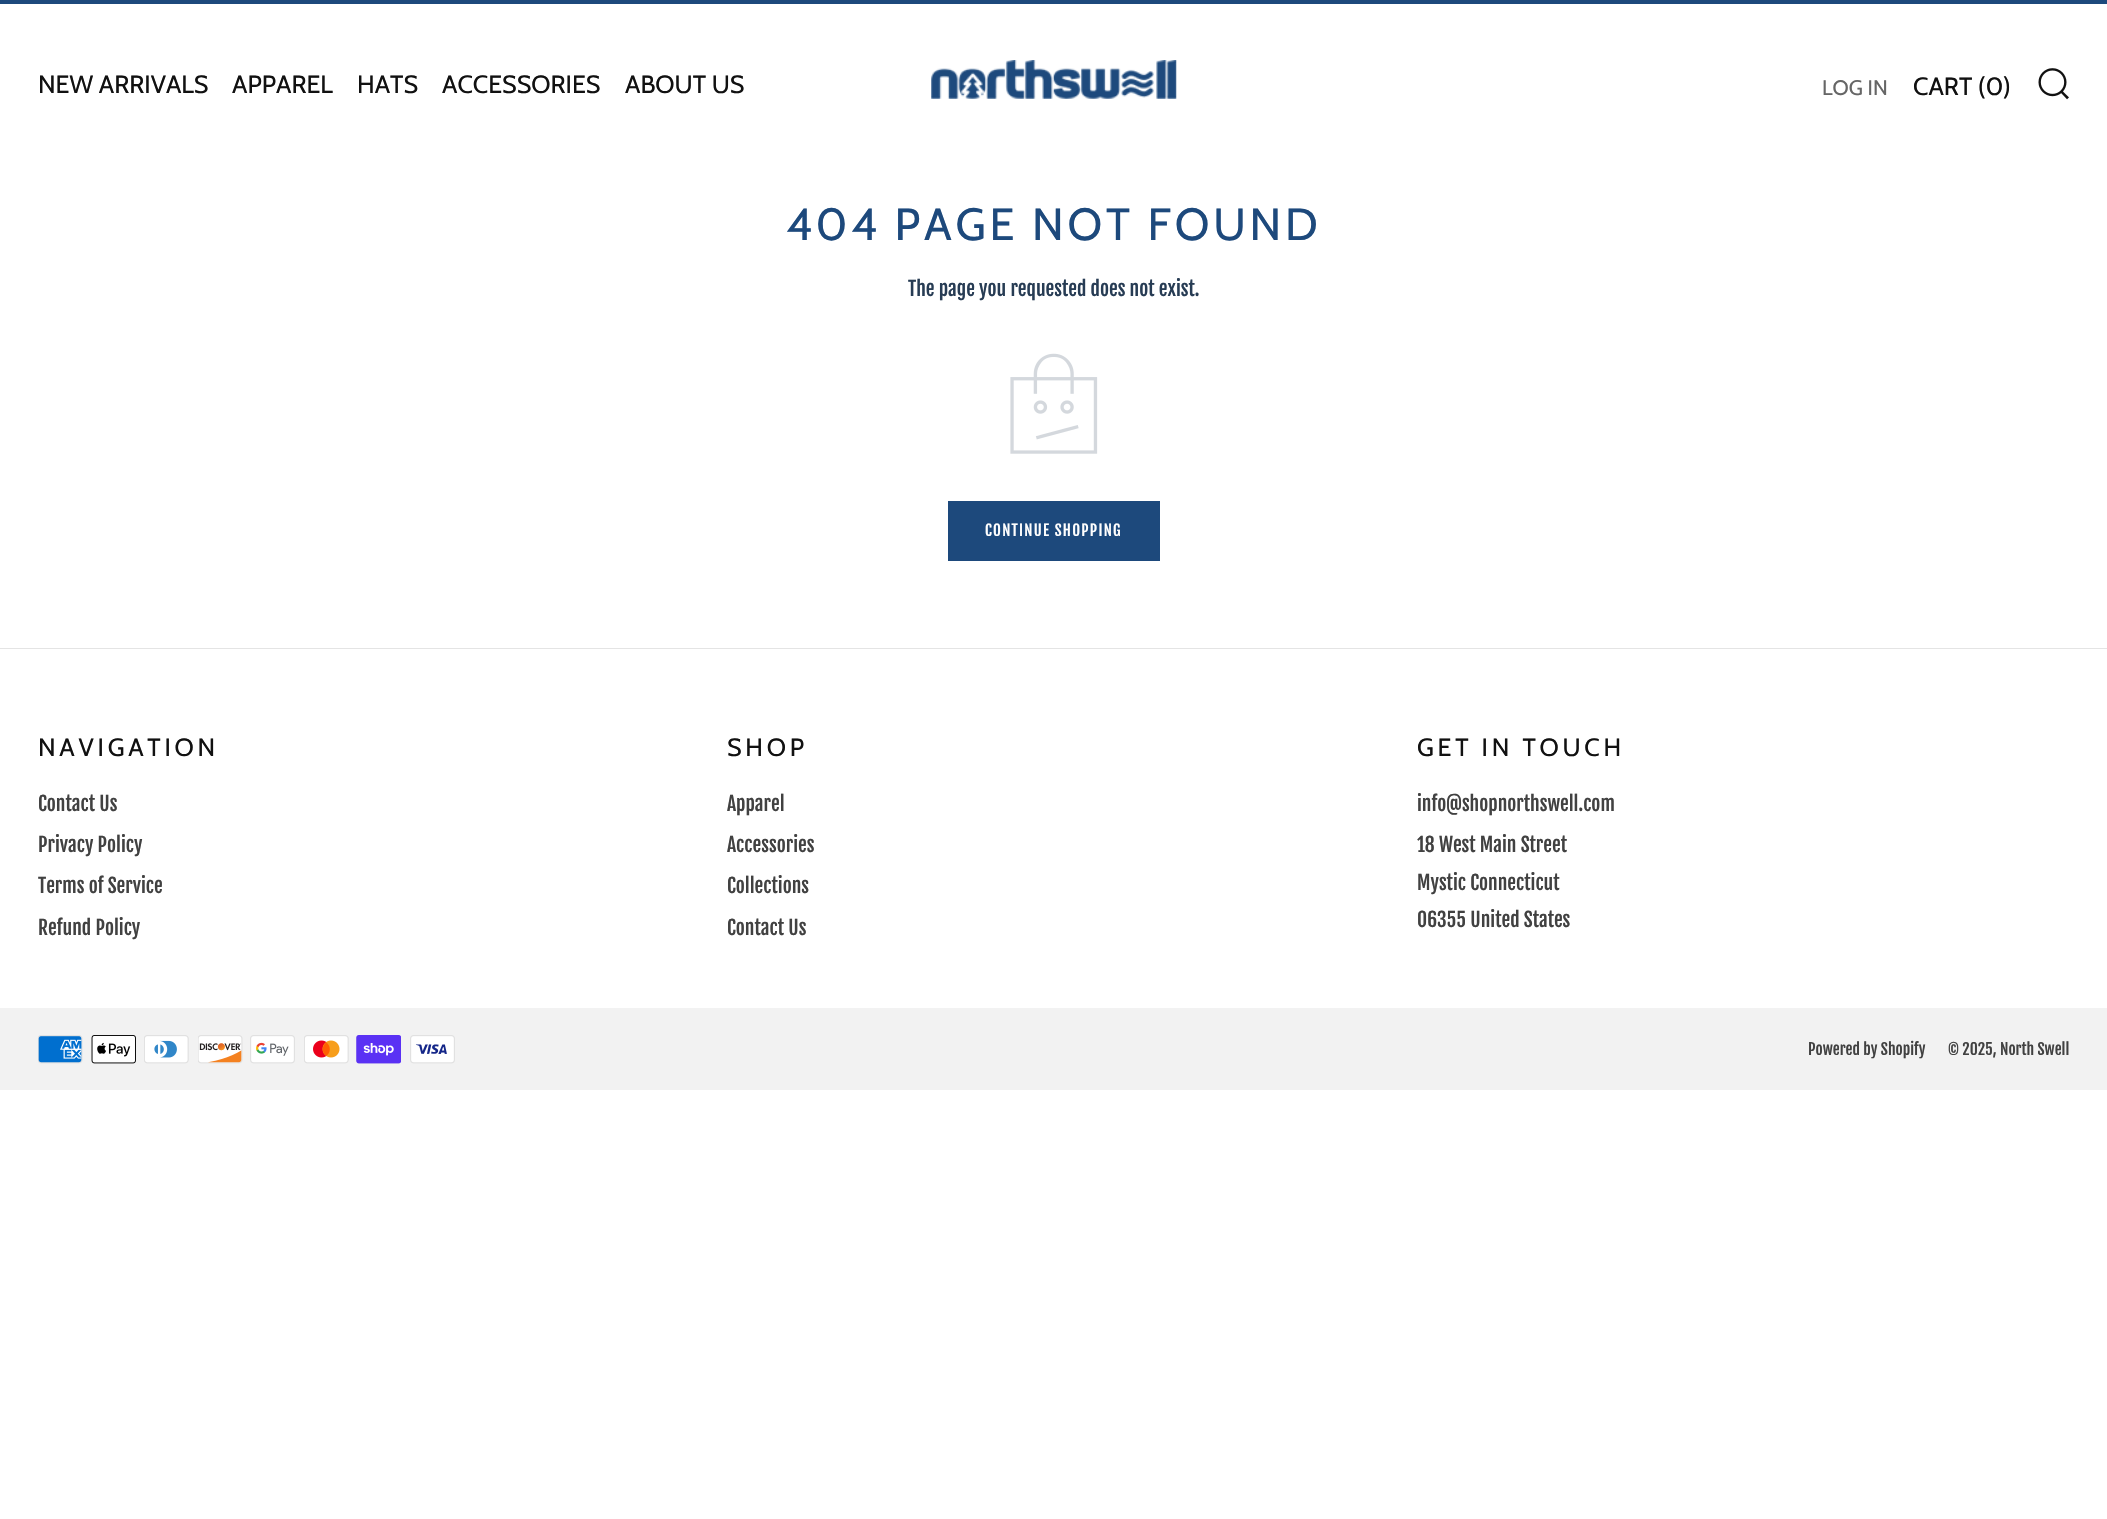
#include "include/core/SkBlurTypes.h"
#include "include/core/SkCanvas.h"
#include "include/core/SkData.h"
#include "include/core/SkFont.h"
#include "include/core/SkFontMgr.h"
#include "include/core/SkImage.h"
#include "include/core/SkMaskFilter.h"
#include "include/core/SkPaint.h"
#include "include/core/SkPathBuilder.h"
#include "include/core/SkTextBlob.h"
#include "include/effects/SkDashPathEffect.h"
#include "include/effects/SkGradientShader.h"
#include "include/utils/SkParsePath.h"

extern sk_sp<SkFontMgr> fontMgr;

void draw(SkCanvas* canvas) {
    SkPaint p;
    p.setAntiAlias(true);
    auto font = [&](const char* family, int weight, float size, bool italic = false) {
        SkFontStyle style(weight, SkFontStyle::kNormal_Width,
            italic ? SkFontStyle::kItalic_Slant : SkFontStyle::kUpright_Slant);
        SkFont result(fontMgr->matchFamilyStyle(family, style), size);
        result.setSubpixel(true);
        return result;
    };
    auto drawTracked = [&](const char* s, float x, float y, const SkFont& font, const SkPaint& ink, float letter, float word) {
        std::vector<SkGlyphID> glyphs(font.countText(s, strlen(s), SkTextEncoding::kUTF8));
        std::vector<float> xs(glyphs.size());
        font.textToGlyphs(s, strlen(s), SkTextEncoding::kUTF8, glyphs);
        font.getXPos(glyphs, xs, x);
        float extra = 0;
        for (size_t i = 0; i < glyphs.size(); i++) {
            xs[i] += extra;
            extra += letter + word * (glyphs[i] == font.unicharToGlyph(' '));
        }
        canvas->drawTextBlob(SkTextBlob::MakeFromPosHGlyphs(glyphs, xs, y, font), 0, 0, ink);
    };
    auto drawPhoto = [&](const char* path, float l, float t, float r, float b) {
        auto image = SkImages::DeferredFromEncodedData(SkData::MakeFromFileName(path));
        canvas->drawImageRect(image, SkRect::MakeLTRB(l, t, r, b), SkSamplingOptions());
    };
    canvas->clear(0xFFFFFFFF);
    p.setColor(0xFF1D497C);
    canvas->drawRect(SkRect::MakeLTRB(0, 0, 2107, 4), p);
    drawPhoto("media/1.png", 931, 60, 1177, 99);
    auto font1 = font("Cabin", 400, 25);
    p.setColor(0xFF111111);
    {
        const struct { const char* s; float x, y; } items[] = {
            {"NEW ARRIVALS", 38, 93},
            {"APPAREL", 232, 93},
            {"HATS", 357, 93},
            {"ACCESSORIES", 442, 93},
            {"ABOUT US", 625, 93},
        };
        for (auto [s, x, y] : items) {
            canvas->drawString(s, x, y, font1, p);
        }
    }
    auto font2 = font("Cabin", 400, 21);
    p.setColor(0xFF666666);
    canvas->drawString("LOG IN", 1822, 95, font2, p);
    p.setColor(0xFF111111);
    canvas->drawString("CART (0)", 1913, 95, font1, p);
    drawPhoto("media/2.png", 2038, 68, 2069, 100);
    auto font3 = font("Cabin", 400, 45);
    p.setColor(0xFF1D497C);
    drawTracked("404 PAGE NOT FOUND", 786, 240, font3, p, 3.75f, 0);
    auto font4 = font("Fjalla One", 400, 19.5f);
    p.setColor(0xFF273C54);
    canvas->drawString("The page you requested does not exist.", 908, 296, font4, p);
    drawPhoto("media/3.png", 1010, 353, 1098, 454);
    p.setColor(0xFF1D497C);
    canvas->drawRect(SkRect::MakeLTRB(948, 501, 1160, 561), p);
    auto font5 = font("Fjalla One", 400, 15);
    p.setColor(0xFFFFFFFF);
    drawTracked("CONTINUE SHOPPING", 985, 536, font5, p, 1.25f, 0);
    p.setColor(0xFFE4E4E4);
    canvas->drawRect(SkRect::MakeLTRB(0, 648, 2107, 649), p);
    p.setColor(0xFF111111);
    drawTracked("NAVIGATION", 38, 756, font1, p, 3.75f, 0);
    p.setColor(0xFF414141);
    {
        const struct { const char* s; float x, y; } items[] = {
            {"Contact Us", 38, 811},
            {"Privacy Policy", 38, 852},
            {"Terms of Service", 38, 893},
            {"Refund Policy", 38, 935},
        };
        for (auto [s, x, y] : items) {
            canvas->drawString(s, x, y, font4, p);
        }
    }
    p.setColor(0xFF111111);
    drawTracked("SHOP", 727, 756, font1, p, 3.75f, 0);
    p.setColor(0xFF414141);
    {
        const struct { const char* s; float x, y; } items[] = {
            {"Apparel", 727, 811},
            {"Accessories", 727, 852},
            {"Collections", 727, 893},
            {"Contact Us", 727, 935},
        };
        for (auto [s, x, y] : items) {
            canvas->drawString(s, x, y, font4, p);
        }
    }
    p.setColor(0xFF111111);
    drawTracked("GET IN TOUCH", 1417, 756, font1, p, 3.75f, 0);
    p.setColor(0xFF414141);
    {
        const struct { const char* s; float x, y; } items[] = {
            {"info@shopnorthswell.com", 1417, 811},
            {"18 West Main Street", 1417, 852},
            {"Mystic Connecticut", 1417, 890},
            {"06355 United States", 1417, 927},
        };
        for (auto [s, x, y] : items) {
            canvas->drawString(s, x, y, font4, p);
        }
    }
    p.setColor(0xFFF2F2F2);
    canvas->drawRect(SkRect::MakeLTRB(0, 1008, 2107, 1090), p);
    drawPhoto("media/4.png", 38, 1035, 83, 1064);
    drawPhoto("media/5.png", 91, 1035, 136, 1064);
    drawPhoto("media/6.png", 144, 1035, 189, 1064);
    drawPhoto("media/7.png", 198, 1035, 243, 1064);
    drawPhoto("media/8.png", 250, 1035, 295, 1064);
    drawPhoto("media/9.png", 304, 1035, 349, 1064);
    drawPhoto("media/10.png", 356, 1035, 401, 1064);
    drawPhoto("media/11.png", 410, 1035, 455, 1064);
    auto font6 = font("Fjalla One", 400, 15.5f);
    p.setColor(0xFF414141);
    canvas->drawString("Powered by Shopify", 1808, 1055, font6, p);
    canvas->drawString("© 2025, North Swell", 1948, 1055, font6, p);
}
